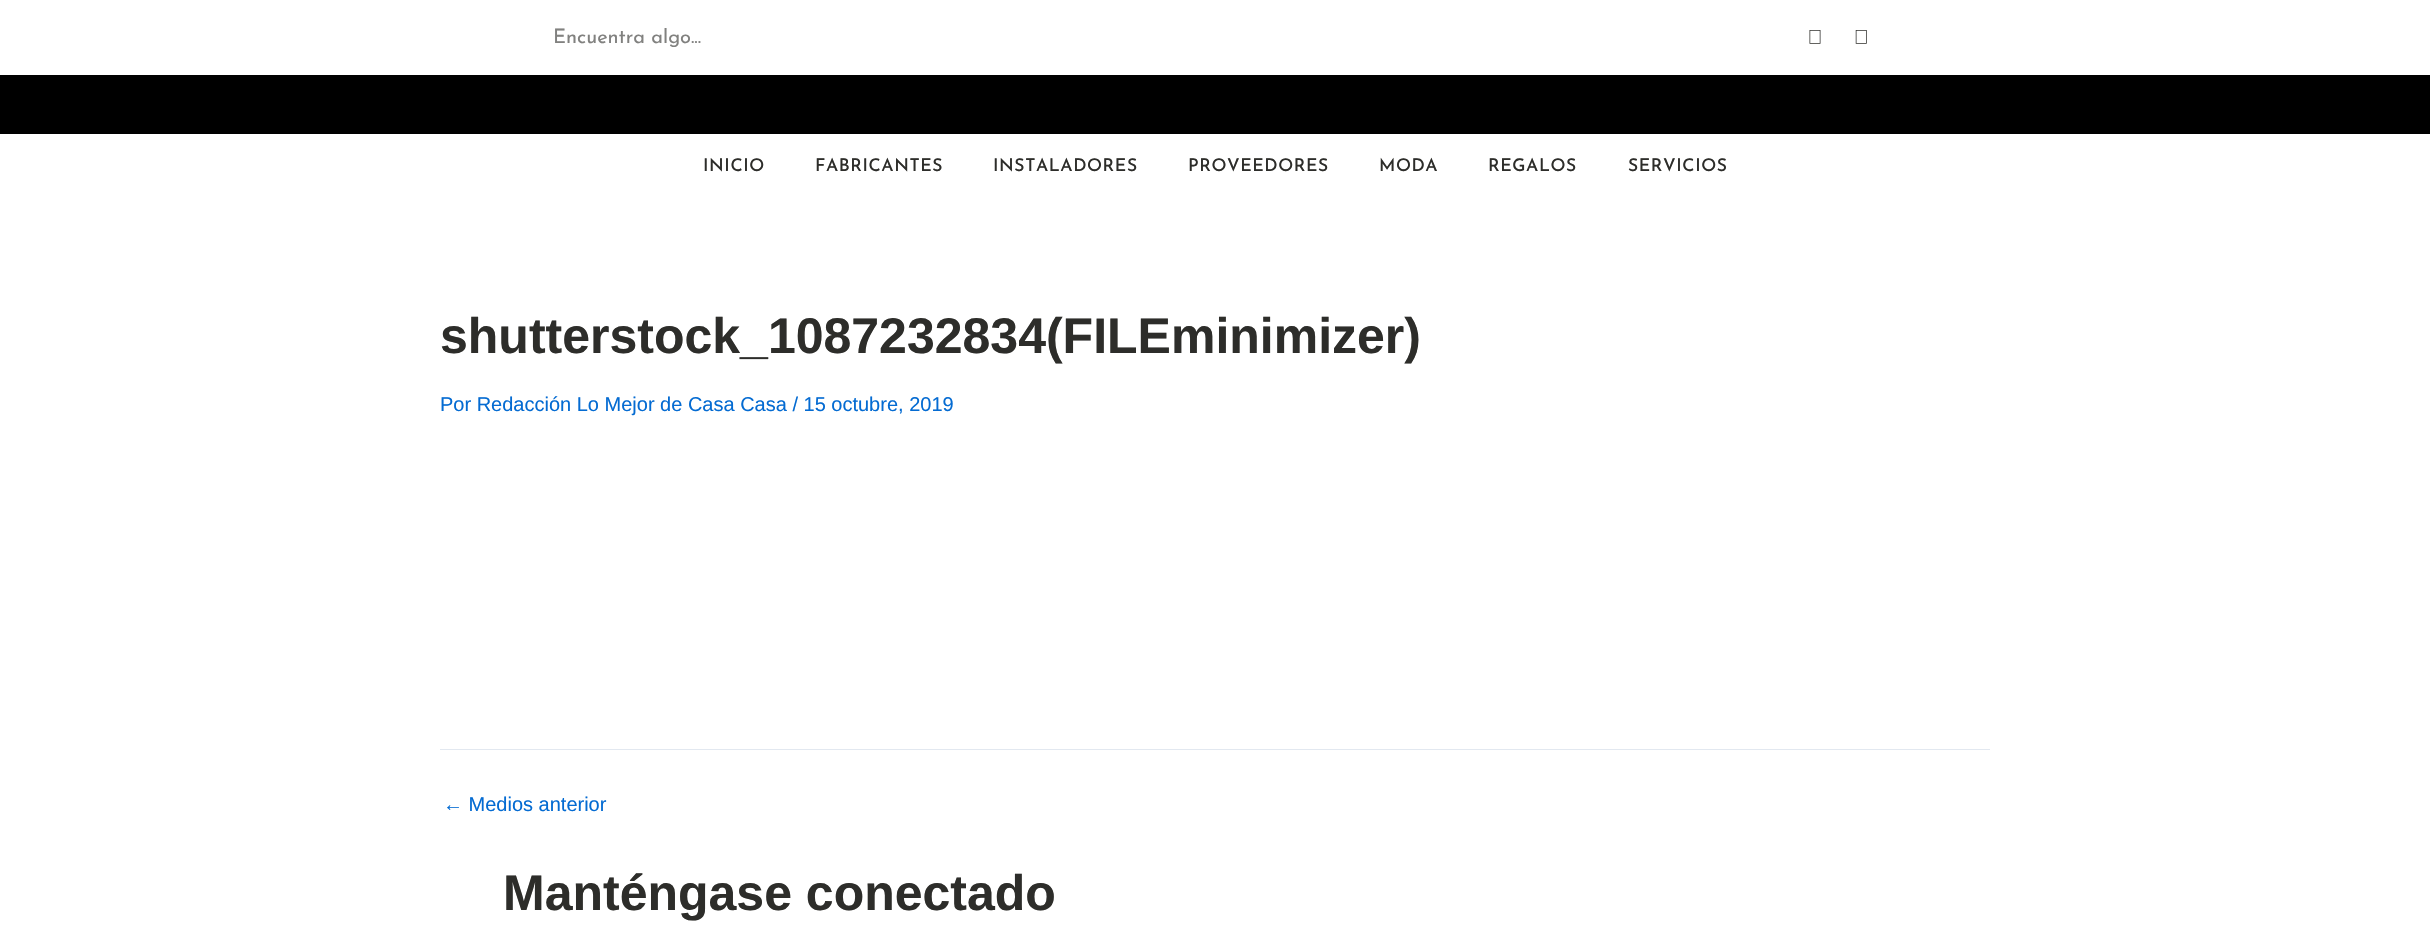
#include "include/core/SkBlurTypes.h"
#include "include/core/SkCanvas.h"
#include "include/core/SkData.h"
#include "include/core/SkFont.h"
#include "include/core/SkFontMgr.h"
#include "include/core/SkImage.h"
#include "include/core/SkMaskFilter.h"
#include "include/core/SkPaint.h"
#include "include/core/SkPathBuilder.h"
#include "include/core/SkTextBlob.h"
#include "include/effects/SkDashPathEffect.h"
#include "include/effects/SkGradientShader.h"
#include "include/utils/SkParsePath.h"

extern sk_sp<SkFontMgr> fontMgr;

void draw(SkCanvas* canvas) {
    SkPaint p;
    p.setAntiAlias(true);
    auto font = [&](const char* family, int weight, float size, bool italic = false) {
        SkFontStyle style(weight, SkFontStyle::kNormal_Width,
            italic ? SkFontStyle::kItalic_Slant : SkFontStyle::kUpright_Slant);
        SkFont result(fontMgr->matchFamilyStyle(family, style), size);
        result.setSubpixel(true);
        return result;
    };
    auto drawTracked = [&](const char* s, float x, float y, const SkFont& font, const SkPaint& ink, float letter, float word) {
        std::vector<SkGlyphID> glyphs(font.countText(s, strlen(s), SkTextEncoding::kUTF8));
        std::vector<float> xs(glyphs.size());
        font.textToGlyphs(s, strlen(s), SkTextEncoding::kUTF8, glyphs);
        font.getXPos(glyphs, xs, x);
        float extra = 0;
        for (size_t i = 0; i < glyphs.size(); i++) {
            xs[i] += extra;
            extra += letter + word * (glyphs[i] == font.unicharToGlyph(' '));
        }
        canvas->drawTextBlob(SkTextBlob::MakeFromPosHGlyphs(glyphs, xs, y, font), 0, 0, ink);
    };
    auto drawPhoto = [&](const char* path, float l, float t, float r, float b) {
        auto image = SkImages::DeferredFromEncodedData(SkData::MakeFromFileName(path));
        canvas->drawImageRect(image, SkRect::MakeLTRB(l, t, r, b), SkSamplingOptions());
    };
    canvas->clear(0xFFFFFFFF);
    canvas->save();
    canvas->clipRect(SkRect::MakeLTRB(553, 28, 765, 48));
    auto font1 = font("Josefin Sans", 400, 20);
    p.setColor(0xFF81817F);
    canvas->drawString("Encuentra algo...", 553, 43, font1, p);
    canvas->restore();
    drawPhoto("media/1.png", 1809, 30, 1821, 44);
    drawPhoto("media/2.png", 1855, 30, 1867, 44);
    p.setColor(0xFF000000);
    canvas->drawRect(SkRect::MakeLTRB(0, 75, 2430, 134), p);
    auto font2 = font("Josefin Sans", 500, 17.5f);
    p.setColor(0xFF2D2D2A);
    {
        const struct { const char* s; float x, y; } items[] = {
            {"INICIO", 703, 171},
            {"FABRICANTES", 815, 171},
            {"INSTALADORES", 993, 171},
            {"PROVEEDORES", 1188, 171},
            {"MODA", 1379, 171},
            {"REGALOS", 1488, 171},
            {"SERVICIOS", 1628, 171},
        };
        for (auto [s, x, y] : items) {
            drawTracked(s, x, y, font2, p, 0.6f, 0);
        }
    }
    auto font3 = font("Liberation Sans", 700, 50);
    canvas->drawString("shutterstock_1087232834(FILEminimizer)", 440, 353, font3, p);
    auto font4 = font("Liberation Sans", 400, 20);
    p.setColor(0xFF046BD2);
    canvas->drawString("Por Redacción Lo Mejor de Casa Casa / 15 octubre, 2019", 440, 411, font4, p);
    p.setColor(0xFFE2E8F0);
    canvas->drawRect(SkRect::MakeLTRB(440, 749, 1990, 750), p);
    p.setColor(0xFF046BD2);
    canvas->drawString("← Medios anterior", 443, 811, font4, p);
    p.setColor(0xFF2D2D2A);
    canvas->drawString("Manténgase conectado", 503, 910, font3, p);
}
